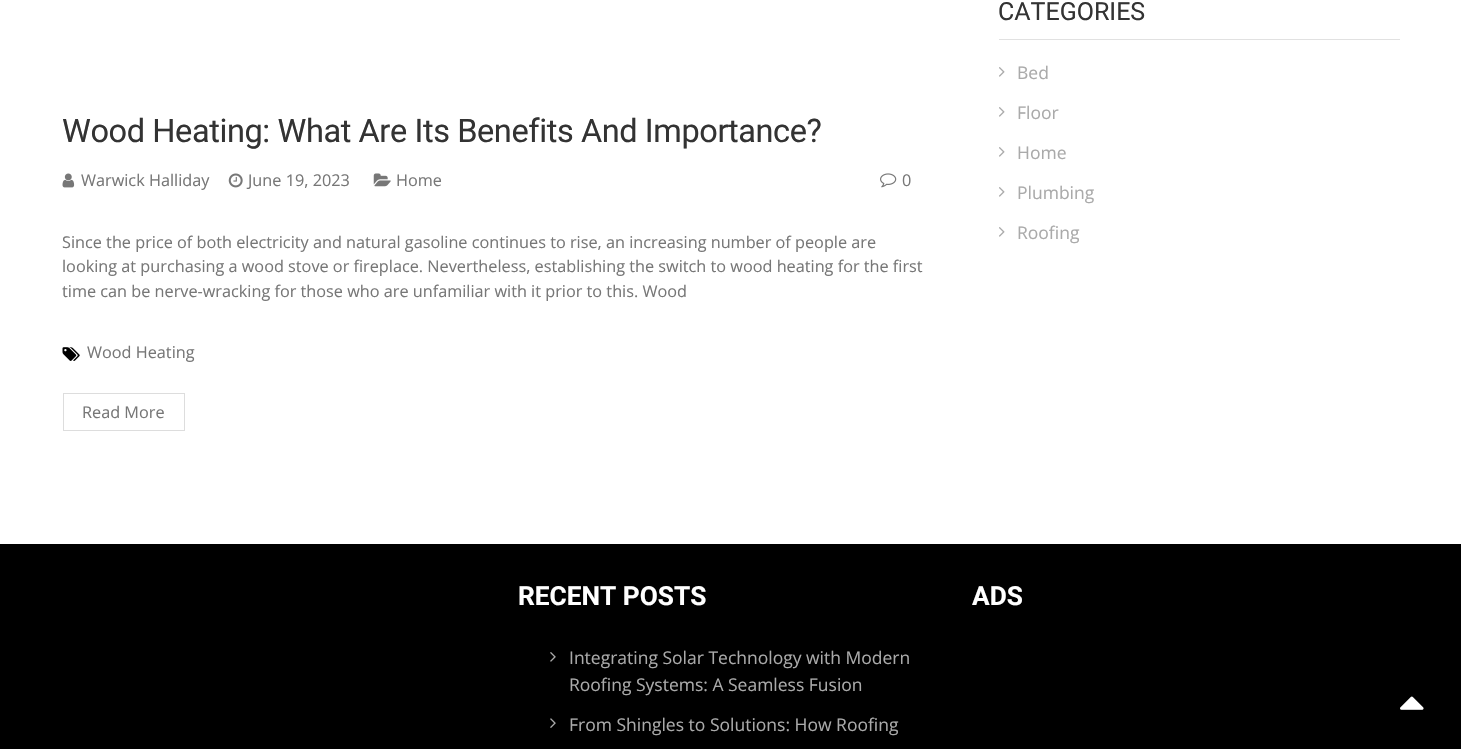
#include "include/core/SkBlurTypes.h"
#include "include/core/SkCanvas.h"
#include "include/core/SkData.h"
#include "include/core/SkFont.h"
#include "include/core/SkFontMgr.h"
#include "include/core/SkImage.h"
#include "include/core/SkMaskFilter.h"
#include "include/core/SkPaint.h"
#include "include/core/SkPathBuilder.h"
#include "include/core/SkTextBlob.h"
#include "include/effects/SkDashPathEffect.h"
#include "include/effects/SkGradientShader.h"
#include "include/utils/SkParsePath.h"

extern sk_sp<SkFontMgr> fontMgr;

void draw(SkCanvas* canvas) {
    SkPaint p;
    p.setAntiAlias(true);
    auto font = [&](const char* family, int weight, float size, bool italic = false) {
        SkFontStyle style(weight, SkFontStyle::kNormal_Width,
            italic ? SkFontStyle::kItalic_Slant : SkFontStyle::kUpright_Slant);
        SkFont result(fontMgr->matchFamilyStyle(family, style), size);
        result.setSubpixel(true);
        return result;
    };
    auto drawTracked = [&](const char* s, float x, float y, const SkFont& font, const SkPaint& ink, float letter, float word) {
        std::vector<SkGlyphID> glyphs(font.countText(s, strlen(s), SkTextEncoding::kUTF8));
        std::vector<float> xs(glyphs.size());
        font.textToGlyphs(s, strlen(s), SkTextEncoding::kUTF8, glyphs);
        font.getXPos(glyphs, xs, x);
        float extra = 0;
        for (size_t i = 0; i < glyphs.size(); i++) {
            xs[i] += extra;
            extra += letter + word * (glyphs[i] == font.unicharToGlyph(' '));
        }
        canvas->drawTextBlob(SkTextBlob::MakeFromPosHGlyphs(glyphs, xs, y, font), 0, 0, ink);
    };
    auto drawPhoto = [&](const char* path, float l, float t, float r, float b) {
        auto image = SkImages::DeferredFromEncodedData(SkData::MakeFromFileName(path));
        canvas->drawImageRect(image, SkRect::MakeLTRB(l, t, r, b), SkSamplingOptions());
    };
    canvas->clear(0xFFFFFFFF);
    auto font1 = font("Roboto", 400, 32.5f);
    p.setColor(0xFF333333);
    drawTracked("Wood Heating: What Are Its Benefits And Importance?", 62, 142, font1, p, -0.4f, 0);
    drawPhoto("media/1.png", 62, 173, 75, 188);
    auto font2 = font("Open Sans", 400, 16.25f);
    p.setColor(0xFF777777);
    canvas->drawString("Warwick Halliday", 81, 186, font2, p);
    drawPhoto("media/2.png", 228, 173, 243, 188);
    canvas->drawString("June 19, 2023", 248, 186, font2, p);
    drawPhoto("media/3.png", 373, 173, 391, 187);
    canvas->drawString("Home", 396, 186, font2, p);
    drawPhoto("media/4.png", 880, 173, 897, 188);
    {
        const struct { const char* s; float x, y; } items[] = {
            {"0", 902, 186},
            {"Since the price of both electricity and natural gasoline continues to rise, an increasing number of people are", 62, 248},
            {"looking at purchasing a wood stove or fireplace. Nevertheless, establishing the switch to wood heating for the first", 62, 272},
            {"time can be nerve-wracking for those who are unfamiliar with it prior to this. Wood", 62, 297},
        };
        for (auto [s, x, y] : items) {
            canvas->drawString(s, x, y, font2, p);
        }
    }
    drawPhoto("media/5.png", 62, 347, 80, 361);
    canvas->drawString("Wood Heating", 87, 358, font2, p);
    p.setStyle(SkPaint::kStroke_Style);
    p.setStrokeWidth(1);
    p.setColor(0xFFDDDDDD);
    canvas->drawRect(SkRect::MakeLTRB(63.5f, 393.5f, 184.5f, 430.5f), p);
    p.setStyle(SkPaint::kFill_Style);
    p.setColor(0xFF777777);
    canvas->drawString("Read More", 82, 418, font2, p);
    p.setColor(0xFFE1E1E1);
    canvas->drawRect(SkRect::MakeLTRB(999, 39, 1400, 40), p);
    auto font3 = font("Roboto", 400, 25);
    p.setColor(0xFF333333);
    canvas->drawString("CATEGORIES", 998, 20, font3, p);
    drawPhoto("media/6.png", 999, 67, 1005, 77);
    auto font4 = font("Open Sans", 400, 17.5f);
    p.setColor(0xFFAAAAAA);
    canvas->drawString("Bed", 1017, 79, font4, p);
    drawPhoto("media/6.png", 999, 107, 1005, 117);
    canvas->drawString("Floor", 1017, 119, font4, p);
    drawPhoto("media/6.png", 999, 147, 1005, 157);
    canvas->drawString("Home", 1017, 159, font4, p);
    drawPhoto("media/6.png", 999, 187, 1005, 197);
    canvas->drawString("Plumbing", 1017, 199, font4, p);
    drawPhoto("media/6.png", 999, 227, 1005, 237);
    canvas->drawString("Roofing", 1017, 239, font4, p);
    p.setColor(0xFF000000);
    canvas->drawRect(SkRect::MakeLTRB(0, 544, 1461, 749), p);
    auto font5 = font("Roboto", 700, 26.25f);
    p.setColor(0xFFFFFFFF);
    canvas->drawString("RECENT POSTS", 518, 605, font5, p);
    drawPhoto("media/7.png", 550, 652, 556, 662);
    p.setColor(0xFFAAAAAA);
    canvas->drawString("Integrating Solar Technology with Modern", 569, 664, font4, p);
    canvas->drawString("Roofing Systems: A Seamless Fusion", 569, 691, font4, p);
    drawPhoto("media/8.png", 550, 718, 556, 728);
    canvas->drawString("From Shingles to Solutions: How Roofing", 569, 731, font4, p);
    p.setColor(0xFFFFFFFF);
    canvas->drawString("ADS", 972, 605, font5, p);
    drawPhoto("media/9.png", 1400, 696, 1424, 710);
}
